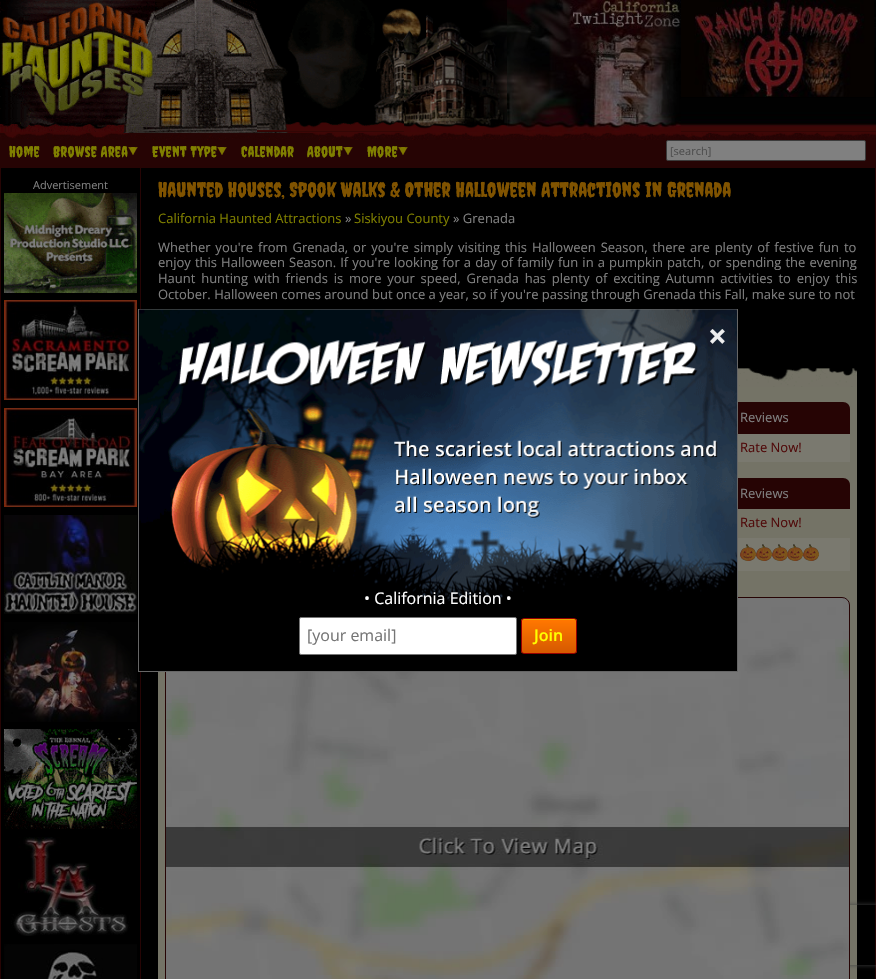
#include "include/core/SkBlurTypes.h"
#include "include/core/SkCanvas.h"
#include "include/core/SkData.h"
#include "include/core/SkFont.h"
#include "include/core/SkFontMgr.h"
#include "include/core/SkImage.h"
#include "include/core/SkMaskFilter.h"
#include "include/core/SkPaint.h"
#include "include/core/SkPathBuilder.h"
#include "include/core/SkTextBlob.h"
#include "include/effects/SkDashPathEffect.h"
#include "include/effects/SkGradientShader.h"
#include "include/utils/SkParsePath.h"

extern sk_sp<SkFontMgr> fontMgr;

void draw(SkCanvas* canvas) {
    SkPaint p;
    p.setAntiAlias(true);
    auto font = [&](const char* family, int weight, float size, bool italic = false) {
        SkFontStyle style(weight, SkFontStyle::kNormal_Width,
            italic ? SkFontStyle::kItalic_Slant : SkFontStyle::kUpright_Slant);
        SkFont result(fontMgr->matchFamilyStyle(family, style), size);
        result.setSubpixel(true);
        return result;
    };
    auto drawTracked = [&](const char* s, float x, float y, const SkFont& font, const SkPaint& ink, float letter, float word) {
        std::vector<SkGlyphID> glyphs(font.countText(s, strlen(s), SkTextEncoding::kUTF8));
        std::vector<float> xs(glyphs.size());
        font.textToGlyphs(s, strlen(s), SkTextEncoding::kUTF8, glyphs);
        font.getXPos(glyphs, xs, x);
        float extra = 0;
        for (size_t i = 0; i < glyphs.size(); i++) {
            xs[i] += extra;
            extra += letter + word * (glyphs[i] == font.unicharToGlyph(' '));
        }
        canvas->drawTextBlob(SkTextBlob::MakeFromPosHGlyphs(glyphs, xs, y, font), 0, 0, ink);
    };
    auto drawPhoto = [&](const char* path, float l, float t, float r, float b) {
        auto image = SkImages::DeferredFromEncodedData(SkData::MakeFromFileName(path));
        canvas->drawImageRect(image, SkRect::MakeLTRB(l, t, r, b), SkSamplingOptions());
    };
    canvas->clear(0xFF260404);
    drawPhoto("media/1.png", 257, 0, 876, 132);
    drawPhoto("media/2.png", 0, 0, 155, 132);
    drawPhoto("media/3.png", 155, 0, 257, 132);
    drawPhoto("media/4.png", 257, 0, 404, 130);
    drawPhoto("media/5.png", 404, 0, 507, 132);
    drawPhoto("media/6.png", 507, 0, 681, 132);
    drawPhoto("media/7.png", 681, 0, 874, 97);
    drawPhoto("media/8.png", 0, 132, 876, 140);
    auto font1 = font("Creepster", 400, 15);
    p.setColor(0xFF808000);
    drawTracked("Home", 9, 157, font1, p, 0.25f, 0);
    drawPhoto("media/9.png", 128, 147, 138, 155);
    drawTracked("Browse Area", 53, 157, font1, p, 0.25f, 0);
    drawPhoto("media/9.png", 217, 147, 227, 155);
    drawTracked("Event Type", 152, 157, font1, p, 0.25f, 0);
    drawTracked("Calendar", 241, 157, font1, p, 0.25f, 0);
    drawPhoto("media/9.png", 343, 147, 353, 155);
    drawTracked("About", 307, 157, font1, p, 0.25f, 0);
    drawPhoto("media/9.png", 398, 147, 408, 155);
    drawTracked("More", 367, 157, font1, p, 0.25f, 0);
    p.setColor(0xFF808080);
    canvas->drawRoundRect(SkRect::MakeLTRB(666.5f, 140.5f, 865.5f, 160.5f), 1.5f, 1.5f, p);
    p.setStyle(SkPaint::kStroke_Style);
    p.setStrokeWidth(1);
    p.setColor(0xFF3B3B3B);
    canvas->drawRoundRect(SkRect::MakeLTRB(666.5f, 140.5f, 865.5f, 160.5f), 1.5f, 1.5f, p);
    auto font2 = font("Open Sans", 400, 11);
    p.setStyle(SkPaint::kFill_Style);
    p.setColor(0xFF4D4D4D);
    canvas->drawString("[search]", 670, 155, font2, p);
    p.setColor(0xFF000000);
    canvas->drawRect(SkRect::MakeLTRB(1, 168, 875, 979), p);
    p.setColor(0xFF260404);
    canvas->drawRect(SkRect::MakeLTRB(140, 168, 141, 979), p);
    p.setColor(0xFF808080);
    canvas->drawString("Advertisement", 33, 189, font2, p);
    drawPhoto("media/10.png", 4, 193, 137, 293);
    drawPhoto("media/11.png", 4, 300, 137, 400);
    drawPhoto("media/12.png", 4, 408, 137, 507);
    drawPhoto("media/13.png", 4, 515, 137, 614);
    drawPhoto("media/14.png", 4, 622, 137, 722);
    drawPhoto("media/15.png", 4, 729, 137, 829);
    drawPhoto("media/16.png", 11, 837, 130, 936);
    drawPhoto("media/17.png", 4, 944, 137, 979);
    auto font3 = font("Creepster", 400, 20.5f);
    p.setColor(0xFF805300);
    canvas->drawString("Haunted Houses, Spook Walks & Other Halloween Attractions in Grenada", 158, 197, font3, p);
    auto font4 = font("Open Sans", 400, 13);
    p.setColor(0xFF808000);
    canvas->drawString("California Haunted Attractions", 158, 223, font4, p);
    p.setColor(0xFF808080);
    canvas->drawString("»", 345, 223, font4, p);
    p.setColor(0xFF808000);
    canvas->drawString("Siskiyou County", 354, 223, font4, p);
    p.setColor(0xFF808080);
    canvas->drawString("» Grenada", 453, 223, font4, p);
    drawTracked("Whether you're from Grenada, or you're simply visiting this Halloween Season, there are plenty of festive fun to", 158, 252, font4, p, 0, 1.5f);
    drawTracked("enjoy this Halloween Season. If you're looking for a day of family fun in a pumpkin patch, or spending the evening", 158, 267, font4, p, 0, 0.7f);
    drawTracked("Haunt hunting with friends is more your speed, Grenada has plenty of exciting Autumn activities to enjoy this", 158, 283, font4, p, 0, 2.4f);
    canvas->drawString("October. Halloween comes around but once a year, so if you're passing through Grenada this Fall, make sure to not", 158, 299, font4, p);
    p.setColor(0xFF747366);
    canvas->drawRect(SkRect::MakeLTRB(158, 387, 857, 979), p);
    drawPhoto("media/18.png", 738, 359, 857, 387);
    p.setColor(0xFF260404);
    canvas->drawPath(SkPathBuilder().moveTo(733, 402).lineTo(843, 402).cubicTo(847, 402, 850, 405, 850, 409).lineTo(850, 434).lineTo(733, 434).close().detach(), p);
    p.setColor(0xFF808080);
    canvas->drawString("Reviews", 740, 422, font4, p);
    p.setColor(0xFF7A796F);
    canvas->drawRect(SkRect::MakeLTRB(738, 434, 850, 462), p);
    p.setColor(0xFF500A0A);
    canvas->drawString("Rate Now!", 740, 452, font4, p);
    p.setColor(0xFF260404);
    canvas->drawPath(SkPathBuilder().moveTo(733, 478).lineTo(843, 478).cubicTo(847, 478, 850, 481, 850, 485).lineTo(850, 509).lineTo(733, 509).close().detach(), p);
    p.setColor(0xFF808080);
    canvas->drawString("Reviews", 740, 498, font4, p);
    p.setColor(0xFF500A0A);
    canvas->drawString("Rate Now!", 740, 527, font4, p);
    p.setColor(0xFF7A796F);
    canvas->drawRect(SkRect::MakeLTRB(738, 538, 850, 571), p);
    drawPhoto("media/19.png", 740, 544, 819, 561);
    drawPhoto("media/20.png", 740, 544, 819, 561);
    canvas->save();
    canvas->clipPath(SkPathBuilder(SkPathFillType::kEvenOdd).moveTo(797, 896).lineTo(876, 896).lineTo(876, 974).lineTo(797, 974).close().moveTo(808, 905).lineTo(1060, 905).cubicTo(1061, 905, 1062, 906, 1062, 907).lineTo(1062, 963).cubicTo(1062, 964, 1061, 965, 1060, 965).lineTo(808, 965).cubicTo(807, 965, 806, 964, 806, 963).lineTo(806, 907).cubicTo(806, 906, 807, 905, 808, 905).close().detach(), true);
    p.setColor(0xFF404040);
    p.setMaskFilter(SkMaskFilter::MakeBlur(kNormal_SkBlurStyle, 2.5f));
    canvas->drawRoundRect(SkRect::MakeLTRB(806, 905, 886, 965), 2, 2, p);
    p.setMaskFilter(nullptr);
    canvas->restore();
    drawPhoto("media/21.png", 166, 597, 850, 979);
    p.setStyle(SkPaint::kStroke_Style);
    p.setColor(0xFF260404);
    canvas->drawRoundRect(SkRect::MakeLTRB(165.5f, 597.5f, 849.5f, 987.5f), 7.5f, 7.5f, p);
    p.setStyle(SkPaint::kFill_Style);
    p.setColor(0xFF000000);
    canvas->drawRect(SkRect::MakeLTRB(140, 602, 737, 671), p);
    p.setStyle(SkPaint::kStroke_Style);
    p.setColor(0xFF666666);
    canvas->drawRect(SkRect::MakeLTRB(138.5f, 309.5f, 737.5f, 671.5f), p);
    drawPhoto("media/22.png", 139, 309, 737, 602);
    auto font5 = font("Open Sans", 700, 33);
    p.setStyle(SkPaint::kFill_Style);
    p.setColor(0xFFEEEEEE);
    canvas->drawString("×", 708, 348, font5, p);
    auto font6 = font("Open Sans", 400, 16);
    p.setColor(0xFFFFFFFF);
    canvas->drawString("• California Edition •", 364, 604, font6, p);
    canvas->drawRoundRect(SkRect::MakeLTRB(299.5f, 617.5f, 516.5f, 654.5f), 1.5f, 1.5f, p);
    p.setStyle(SkPaint::kStroke_Style);
    p.setColor(0xFF767676);
    canvas->drawRoundRect(SkRect::MakeLTRB(299.5f, 617.5f, 516.5f, 654.5f), 1.5f, 1.5f, p);
    p.setStyle(SkPaint::kFill_Style);
    p.setColor(0xFF757575);
    canvas->drawString("[your email]", 307, 641, font6, p);
    canvas->save();
    canvas->clipPath(SkPathBuilder().moveTo(524, 618).lineTo(574, 618).cubicTo(575.5f, 618, 577, 619.5f, 577, 621).lineTo(577, 651).cubicTo(577, 652.5f, 575.5f, 654, 574, 654).lineTo(524, 654).cubicTo(522.5f, 654, 521, 652.5f, 521, 651).lineTo(521, 621).cubicTo(521, 619.5f, 522.5f, 618, 524, 618).close().detach(), true);
    {
        const SkColor colors[] = {0xFFFF7700, 0xFFD55900};
        const float stops[] = {0.05f, 1};
        const SkPoint ends[] = {{549, 619}, {549, 653}};
        p.setShader(SkGradientShader::MakeLinear(ends, colors, stops, 2, SkTileMode::kClamp));
        p.setAlpha(255);
    }
    canvas->drawRect(SkRect::MakeLTRB(521, 619, 577, 653), p);
    canvas->restore();
    p.setShader(nullptr);
    p.setColor(0xFFEBA500);
    canvas->drawPath(SkPathBuilder().moveTo(524, 620).lineTo(574, 620).cubicTo(575, 620, 576, 620, 576, 622).cubicTo(576, 617, 570, 619, 566, 619).lineTo(532, 619).cubicTo(528, 619, 522, 617, 522, 622).cubicTo(522, 620, 523, 620, 524, 620).close().detach(), p);
    p.setStyle(SkPaint::kStroke_Style);
    p.setColor(0xFF960000);
    canvas->drawRoundRect(SkRect::MakeLTRB(521.5f, 618.5f, 576.5f, 653.5f), 2.5f, 2.5f, p);
    auto font7 = font("Open Sans", 600, 16);
    p.setStyle(SkPaint::kFill_Style);
    p.setColor(0xFFFFFF00);
    canvas->drawString("Join", 534, 641, font7, p);
}
